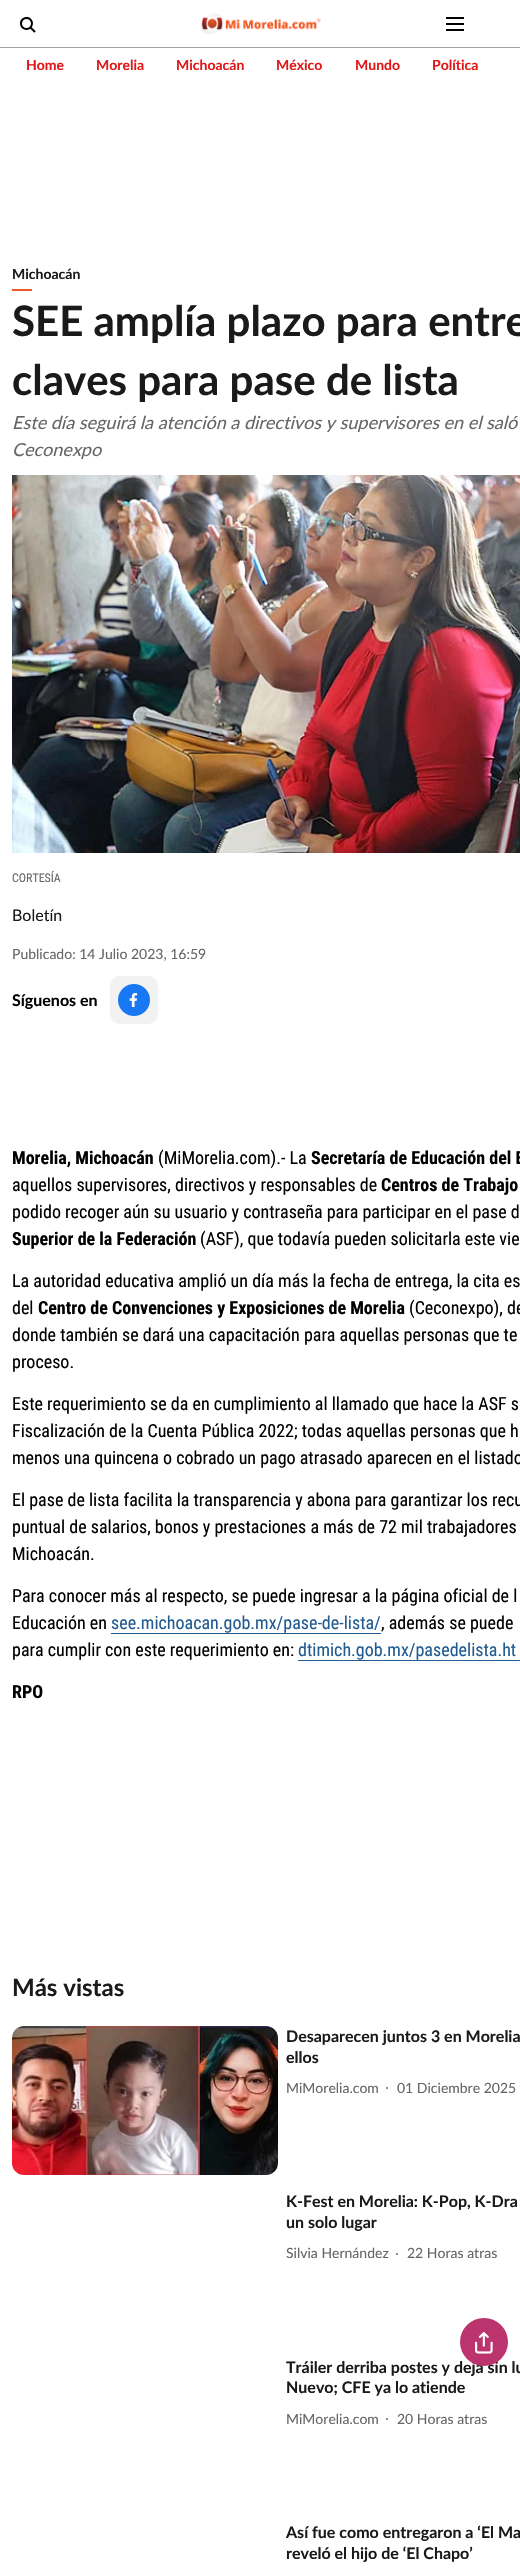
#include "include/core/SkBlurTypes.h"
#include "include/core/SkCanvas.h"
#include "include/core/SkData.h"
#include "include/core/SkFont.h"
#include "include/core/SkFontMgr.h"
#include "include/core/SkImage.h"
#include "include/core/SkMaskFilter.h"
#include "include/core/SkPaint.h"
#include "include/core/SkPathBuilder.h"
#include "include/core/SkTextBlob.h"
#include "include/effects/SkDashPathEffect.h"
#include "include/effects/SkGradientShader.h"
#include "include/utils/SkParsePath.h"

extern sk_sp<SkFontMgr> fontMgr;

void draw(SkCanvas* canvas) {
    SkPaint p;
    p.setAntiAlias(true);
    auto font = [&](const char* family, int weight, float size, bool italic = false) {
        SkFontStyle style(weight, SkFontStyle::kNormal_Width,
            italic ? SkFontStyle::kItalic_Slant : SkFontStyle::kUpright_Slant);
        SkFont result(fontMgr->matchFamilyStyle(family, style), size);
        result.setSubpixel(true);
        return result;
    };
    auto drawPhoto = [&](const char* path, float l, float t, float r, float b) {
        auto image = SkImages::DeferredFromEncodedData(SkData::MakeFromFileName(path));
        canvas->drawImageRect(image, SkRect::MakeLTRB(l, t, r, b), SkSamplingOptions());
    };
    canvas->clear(0xFFFFFFFF);
    p.setColor(0xFFA4A4A4);
    canvas->drawRect(SkRect::MakeLTRB(0, 47, 520, 48), p);
    drawPhoto("media/1.png", 201, 13, 321, 34);
    drawPhoto("media/2.png", 19, 17, 36, 33);
    drawPhoto("media/3.png", 446, 17, 464, 31);
    auto font1 = font("Lato", 700, 14);
    p.setColor(0xFFE01818);
    {
        const struct { const char* s; float x, y; } items[] = {
            {"Home", 26, 70},
            {"Morelia", 96, 70},
            {"Michoacán", 176, 70},
            {"México", 276, 70},
            {"Mundo", 355, 70},
            {"Política", 432, 70},
        };
        for (auto [s, x, y] : items) {
            canvas->drawString(s, x, y, font1, p);
        }
    }
    p.setColor(0xFF1A1A1A);
    canvas->drawString("Michoacán", 12, 279, font1, p);
    p.setColor(0xFFF15822);
    canvas->drawRect(SkRect::MakeLTRB(12, 289, 32, 291), p);
    auto font2 = font("Lato", 700, 42);
    p.setColor(0xFF1A1A1A);
    canvas->drawString("SEE amplía plazo para entre", 12, 336, font2, p);
    canvas->drawString("claves para pase de lista", 12, 395, font2, p);
    auto font3 = font("Lato", 400, 18, true);
    p.setColor(0xFF666666);
    canvas->drawString("Este día seguirá la atención a directivos y supervisores en el saló", 12, 429, font3, p);
    canvas->drawString("Ceconexpo", 12, 456, font3, p);
    drawPhoto("media/4.png", 12, 475, 520, 853);
    auto font4 = font("Roboto Condensed", 400, 12);
    canvas->drawString("CORTESÍA", 12, 882, font4, p);
    auto font5 = font("Lato", 400, 16);
    p.setColor(0xFF1A1A1A);
    canvas->drawString("Boletín", 12, 921, font5, p);
    auto font6 = font("Lato", 400, 14);
    p.setColor(0xFF666666);
    canvas->drawString("Publicado: 14 Julio 2023, 16:59", 12, 959, font6, p);
    auto font7 = font("Lato", 700, 16);
    p.setColor(0xFF000000);
    canvas->drawString("Síguenos en", 12, 1006, font7, p);
    p.setColor(0xFFF2F2F2);
    canvas->drawRoundRect(SkRect::MakeLTRB(110, 976, 158, 1024), 10, 10, p);
    drawPhoto("media/5.png", 118, 984, 150, 1016);
    p.setColor(0xFF1A1A1A);
    canvas->drawString("Tráiler derriba postes y deja sin lu", 286, 2373, font7, p);
    p.setColor(0xFFBC346D);
    canvas->drawCircle(484, 2342, 24, p);
    drawPhoto("media/6.png", 475, 2332, 493, 2354);
    auto font8 = font("Roboto Condensed", 700, 18);
    p.setColor(0xFF000000);
    canvas->drawString("Morelia, Michoacán", 12, 1164, font8, p);
    auto font9 = font("Roboto Condensed", 400, 18);
    canvas->drawString("(MiMorelia.com).- La", 158, 1164, font9, p);
    canvas->drawString("Secretaría de Educación del E", 311, 1164, font8, p);
    canvas->drawString("aquellos supervisores, directivos y responsables de", 12, 1191, font9, p);
    canvas->drawString("Centros de Trabajo", 381, 1191, font8, p);
    canvas->drawString("podido recoger aún su usuario y contraseña para participar en el pase d", 12, 1218, font9, p);
    canvas->drawString("Superior de la Federación", 12, 1245, font8, p);
    {
        const struct { const char* s; float x, y; } items[] = {
            {"(ASF), que todavía pueden solicitarla este vie", 200, 1245},
            {"La autoridad educativa amplió un día más la fecha de entrega, la cita es", 12, 1287},
            {"del", 12, 1314},
        };
        for (auto [s, x, y] : items) {
            canvas->drawString(s, x, y, font9, p);
        }
    }
    canvas->drawString("Centro de Convenciones y Exposiciones de Morelia", 38, 1314, font8, p);
    {
        const struct { const char* s; float x, y; } items[] = {
            {"(Ceconexpo), de", 409, 1314},
            {"donde también se dará una capacitación para aquellas personas que te", 12, 1341},
            {"proceso.", 12, 1368},
            {"Este requerimiento se da en cumplimiento al llamado que hace la ASF s", 12, 1410},
            {"Fiscalización de la Cuenta Pública 2022; todas aquellas personas que h", 12, 1437},
            {"menos una quincena o cobrado un pago atrasado aparecen en el listado", 12, 1464},
            {"El pase de lista facilita la transparencia y abona para garantizar los recu", 12, 1506},
            {"puntual de salarios, bonos y prestaciones a más de 72 mil trabajadores", 12, 1533},
            {"Michoacán.", 12, 1560},
            {"Para conocer más al respecto, se puede ingresar a la página oficial de l", 12, 1602},
            {"Educación en", 12, 1629},
        };
        for (auto [s, x, y] : items) {
            canvas->drawString(s, x, y, font9, p);
        }
    }
    p.setColor(0xFF215B91);
    canvas->drawString("see.michoacan.gob.mx/pase-de-lista/", 111, 1629, font9, p);
    canvas->drawRect(SkRect::MakeLTRB(111, 1633, 381, 1634), p);
    p.setColor(0xFF000000);
    canvas->drawString(", además se puede", 381, 1629, font9, p);
    canvas->drawString("para cumplir con este requerimiento en:", 12, 1656, font9, p);
    p.setColor(0xFF215B91);
    canvas->drawString("dtimich.gob.mx/pasedelista.ht", 298, 1656, font9, p);
    canvas->drawRect(SkRect::MakeLTRB(298, 1660, 520, 1661), p);
    p.setColor(0xFF000000);
    canvas->drawString("RPO", 12, 1698, font8, p);
    auto font10 = font("Lato", 700, 24);
    p.setColor(0xFF1A1A1A);
    canvas->drawString("Más vistas", 12, 1996, font10, p);
    drawPhoto("media/7.png", 12, 2026, 278, 2175);
    canvas->drawString("Desaparecen juntos 3 en Morelia", 286, 2042, font7, p);
    canvas->drawString("ellos", 286, 2063, font7, p);
    p.setColor(0xFF666666);
    canvas->drawString("MiMorelia.com", 286, 2093, font6, p);
    canvas->drawCircle(387, 2088, 1, p);
    canvas->drawString("01 Diciembre 2025", 397, 2093, font6, p);
    p.setColor(0xFF1A1A1A);
    canvas->drawString("K-Fest en Morelia: K-Pop, K-Dra", 286, 2207, font7, p);
    canvas->drawString("un solo lugar", 286, 2228, font7, p);
    p.setColor(0xFF666666);
    canvas->drawString("Silvia Hernández", 286, 2258, font6, p);
    canvas->drawCircle(397, 2254, 1, p);
    canvas->drawString("22 Horas atras", 407, 2258, font6, p);
    p.setColor(0xFF1A1A1A);
    canvas->drawString("Nuevo; CFE ya lo atiende", 286, 2393, font7, p);
    p.setColor(0xFF666666);
    canvas->drawString("MiMorelia.com", 286, 2424, font6, p);
    canvas->drawCircle(387, 2419, 1, p);
    canvas->drawString("20 Horas atras", 397, 2424, font6, p);
    p.setColor(0xFF1A1A1A);
    canvas->drawString("Así fue como entregaron a ‘El Ma", 286, 2538, font7, p);
    canvas->drawString("reveló el hijo de ‘El Chapo’", 286, 2559, font7, p);
}
